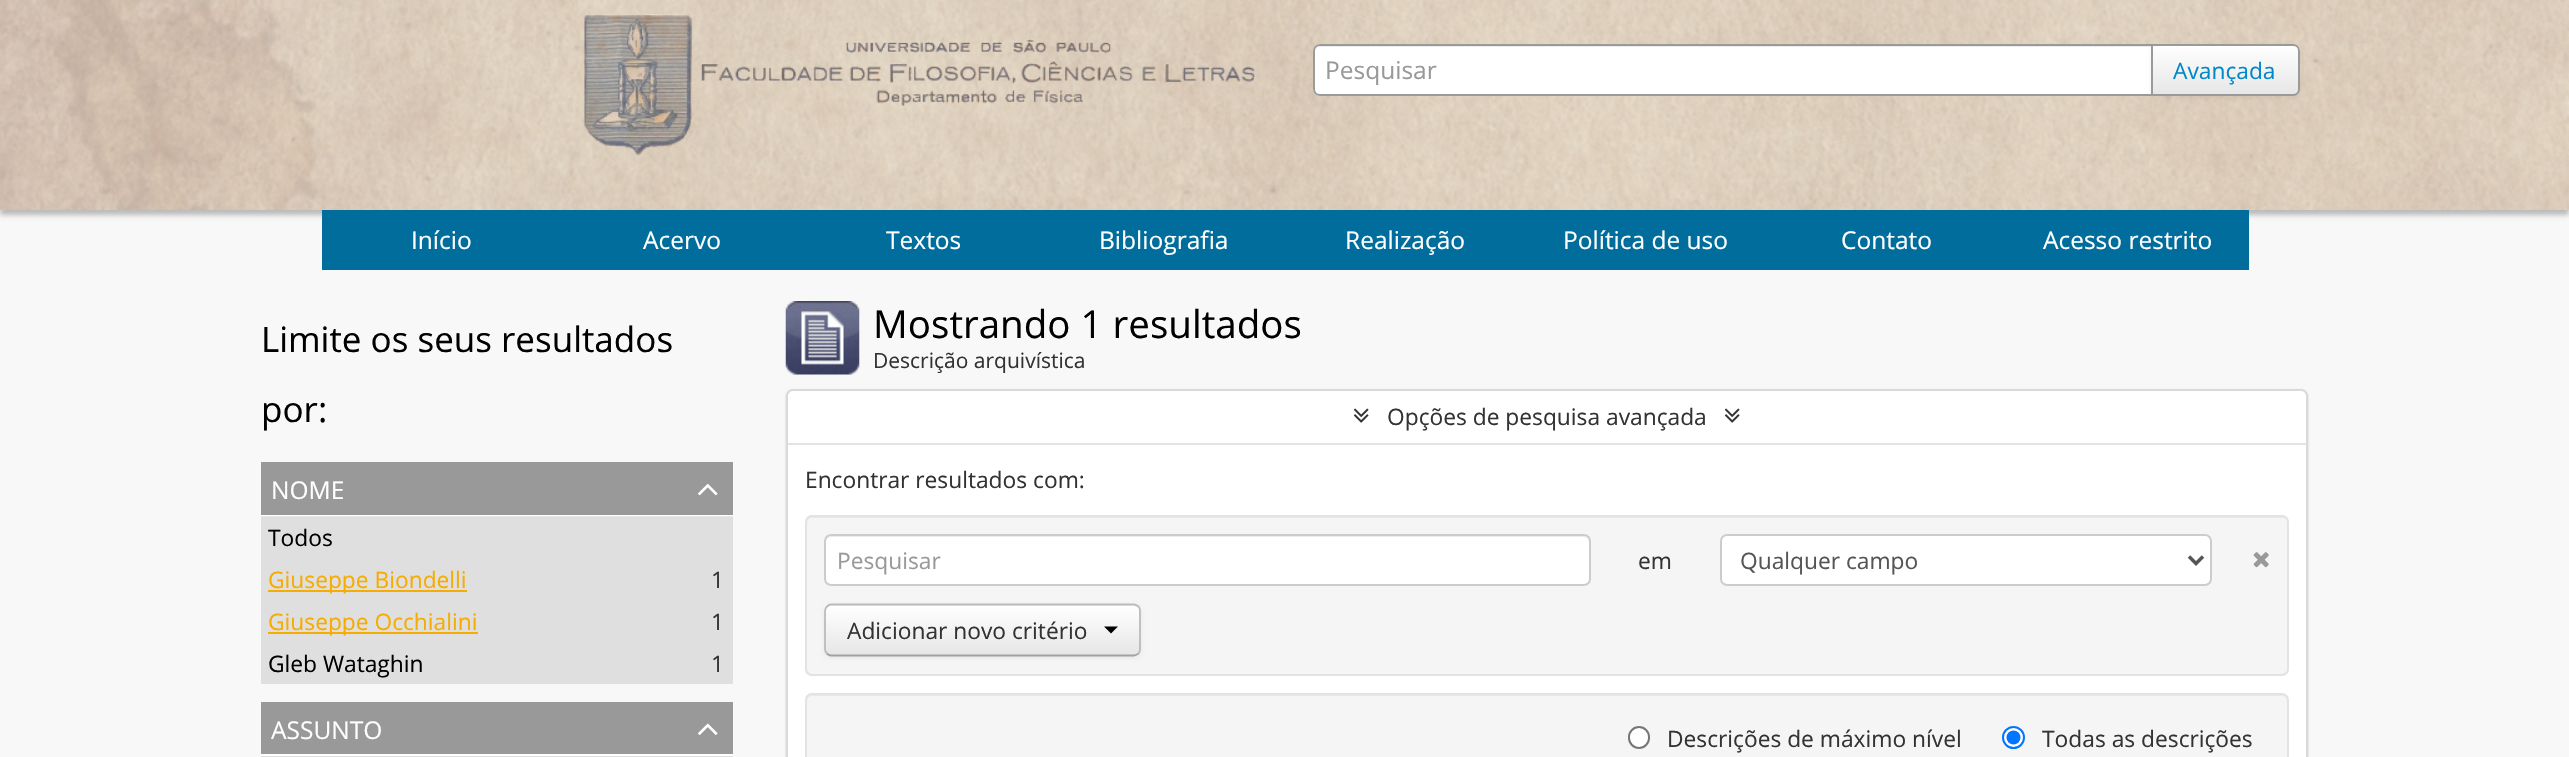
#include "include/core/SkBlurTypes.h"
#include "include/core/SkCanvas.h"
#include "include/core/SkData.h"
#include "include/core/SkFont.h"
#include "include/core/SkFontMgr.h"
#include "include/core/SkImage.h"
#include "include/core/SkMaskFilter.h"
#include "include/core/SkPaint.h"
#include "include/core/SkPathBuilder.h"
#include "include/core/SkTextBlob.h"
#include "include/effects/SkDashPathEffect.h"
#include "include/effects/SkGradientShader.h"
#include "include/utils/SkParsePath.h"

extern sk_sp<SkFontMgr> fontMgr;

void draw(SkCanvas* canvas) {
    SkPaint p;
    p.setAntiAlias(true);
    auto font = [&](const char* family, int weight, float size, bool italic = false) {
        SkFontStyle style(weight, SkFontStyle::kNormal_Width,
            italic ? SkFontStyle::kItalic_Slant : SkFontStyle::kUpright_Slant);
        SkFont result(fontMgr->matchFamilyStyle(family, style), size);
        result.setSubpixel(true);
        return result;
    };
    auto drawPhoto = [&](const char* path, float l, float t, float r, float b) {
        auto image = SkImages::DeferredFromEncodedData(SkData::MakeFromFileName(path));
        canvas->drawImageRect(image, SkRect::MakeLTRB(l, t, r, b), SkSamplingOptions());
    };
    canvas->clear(0xFFF8F8F8);
    p.setColor(0xFFDFDFDF);
    canvas->drawRect(SkRect::MakeLTRB(261, 517, 733, 684), p);
    p.setColor(0x40000000);
    p.setMaskFilter(SkMaskFilter::MakeBlur(kNormal_SkBlurStyle, 2.5f));
    canvas->drawRect(SkRect::MakeLTRB(0, 5, 2569, 215), p);
    p.setMaskFilter(nullptr);
    drawPhoto("media/1.png", 0, 0, 2569, 210);
    drawPhoto("media/2.png", 584, 14, 1255, 156);
    p.setColor(0xFFFFFFFF);
    canvas->drawPath(SkPathBuilder().moveTo(1320, 44).lineTo(2153, 44).lineTo(2153, 96).lineTo(1320, 96).cubicTo(1316, 96, 1313, 93, 1313, 89).lineTo(1313, 51).cubicTo(1313, 47, 1316, 44, 1320, 44).close().detach(), p);
    p.setColor(0xFFECECEC);
    canvas->drawPath(SkPathBuilder().moveTo(1320, 47).lineTo(2151, 47).lineTo(2151, 46).lineTo(1319, 46).cubicTo(1316, 46, 1314, 48, 1314, 51).lineTo(1314, 52).cubicTo(1314, 50, 1317, 47, 1320, 47).close().detach(), p);
    p.setStyle(SkPaint::kStroke_Style);
    p.setStrokeWidth(2);
    p.setColor(0xFF9A9A9A);
    canvas->drawPath(SkPathBuilder().moveTo(1320, 45).lineTo(2152, 45).lineTo(2152, 95).lineTo(1320, 95).cubicTo(1316.5f, 95, 1314, 92.5f, 1314, 89).lineTo(1314, 51).cubicTo(1314, 47.5f, 1316.5f, 45, 1320, 45).close().detach(), p);
    auto font1 = font("Open Sans", 400, 24.5f);
    p.setStyle(SkPaint::kFill_Style);
    p.setColor(0xFF999999);
    canvas->drawString("Pesquisar", 1325, 79, font1, p);
    p.setColor(0x0D000000);
    p.setMaskFilter(SkMaskFilter::MakeBlur(kNormal_SkBlurStyle, 2));
    canvas->drawRoundRect(SkRect::MakeLTRB(2151, 46, 2300, 98), 7, 7, p);
    p.setMaskFilter(nullptr);
    canvas->save();
    canvas->clipPath(SkPathBuilder().moveTo(2151, 44).lineTo(2293, 44).cubicTo(2297, 44, 2300, 47, 2300, 51).lineTo(2300, 89).cubicTo(2300, 93, 2297, 96, 2293, 96).lineTo(2151, 96).close().detach(), true);
    {
        const SkColor colors[] = {0xFFFFFFFF, 0xFFE6E6E6};
        const float stops[] = {0, 1};
        const SkPoint ends[] = {{2225, 45}, {2225, 95}};
        p.setShader(SkGradientShader::MakeLinear(ends, colors, stops, 2, SkTileMode::kClamp));
        p.setAlpha(255);
    }
    canvas->drawRect(SkRect::MakeLTRB(2153, 46, 2300, 95), p);
    canvas->restore();
    p.setStyle(SkPaint::kStroke_Style);
    p.setShader(nullptr);
    p.setColor(0xFF9A9A9A);
    canvas->drawPath(SkPathBuilder().moveTo(2152, 45).lineTo(2293, 45).cubicTo(2296.5f, 45, 2299, 47.5f, 2299, 51).lineTo(2299, 89).cubicTo(2299, 92.5f, 2296.5f, 95, 2293, 95).lineTo(2152, 95).close().detach(), p);
    auto font2 = font("Open Sans", 400, 22.75f);
    p.setStyle(SkPaint::kFill_Style);
    p.setColor(0xFF0088CC);
    canvas->drawString("Avançada", 2173, 79, font2, p);
    p.setColor(0xFF006D9C);
    canvas->drawRect(SkRect::MakeLTRB(322, 210, 2249, 270), p);
    p.setColor(0xFFFFFFFF);
    {
        const struct { const char* s; float x, y; } items[] = {
            {"Início", 411, 249},
            {"Acervo", 643, 249},
            {"Textos", 886, 249},
            {"Bibliografia", 1099, 249},
            {"Realização", 1345, 249},
            {"Política de uso", 1563, 249},
            {"Contato", 1841, 249},
            {"Acesso restrito", 2043, 249},
        };
        for (auto [s, x, y] : items) {
            canvas->drawString(s, x, y, font1, p);
        }
    }
    auto font3 = font("Open Sans", 400, 35);
    p.setColor(0xFF000000);
    canvas->drawString("Limite os seus resultados", 261, 352, font3, p);
    canvas->drawString("por:", 261, 422, font3, p);
    {
        const struct { float l, t, r, b; SkColor color; } items[] = {
            {261, 515, 733, 516, 0xFFFFFFFF},
            {261, 516, 733, 517, 0xFFE6E6E6},
            {261, 462, 733, 515, 0xFF999999},
        };
        for (auto [l, t, r, b, color] : items) {
            p.setColor(color);
            canvas->drawRect(SkRect::MakeLTRB(l, t, r, b), p);
        }
    }
    p.setColor(0xFFFFFFFF);
    canvas->drawString("NOME", 271, 499, font1, p);
    drawPhoto("media/3.png", 698, 484, 718, 496);
    p.setColor(0xFF000000);
    canvas->drawString("Todos", 268, 546, font2, p);
    p.setColor(0xFFF6AC00);
    canvas->drawRect(SkRect::MakeLTRB(268, 590, 467, 592), p);
    canvas->drawString("Giuseppe Biondelli", 268, 588, font2, p);
    p.setColor(0xFF333333);
    canvas->drawString("1", 711, 588, font2, p);
    p.setColor(0xFFF6AC00);
    canvas->drawRect(SkRect::MakeLTRB(268, 632, 478, 634), p);
    canvas->drawString("Giuseppe Occhialini", 268, 630, font2, p);
    p.setColor(0xFF333333);
    canvas->drawString("1", 711, 630, font2, p);
    p.setColor(0xFF000000);
    canvas->drawString("Gleb Wataghin", 268, 672, font2, p);
    p.setColor(0xFF333333);
    canvas->drawString("1", 711, 672, font2, p);
    p.setColor(0xFFFFFFFF);
    canvas->drawRect(SkRect::MakeLTRB(261, 754, 733, 756), p);
    p.setColor(0xFF999999);
    canvas->drawRect(SkRect::MakeLTRB(261, 702, 733, 754), p);
    p.setColor(0xFFFFFFFF);
    canvas->drawString("ASSUNTO", 271, 739, font1, p);
    drawPhoto("media/4.png", 698, 723, 718, 735);
    p.setColor(0xFFDFDFDF);
    canvas->drawRect(SkRect::MakeLTRB(261, 756, 733, 757), p);
    drawPhoto("media/5.png", 785, 301, 860, 375);
    auto font4 = font("Open Sans", 400, 38.5f);
    p.setColor(0xFF000000);
    canvas->drawString("Mostrando 1 resultados", 873, 338, font4, p);
    auto font5 = font("Open Sans", 400, 21);
    p.setColor(0xFF333333);
    canvas->drawString("Descrição arquivística", 873, 368, font5, p);
    p.setColor(0x33000000);
    p.setMaskFilter(SkMaskFilter::MakeBlur(kNormal_SkBlurStyle, 1));
    canvas->drawRoundRect(SkRect::MakeLTRB(786, 390, 2308, 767), 7, 7, p);
    p.setMaskFilter(nullptr);
    p.setColor(0xFFFFFFFF);
    canvas->drawRoundRect(SkRect::MakeLTRB(787, 390, 2307, 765), 6, 6, p);
    p.setStyle(SkPaint::kStroke_Style);
    p.setColor(0xFFD9D9D9);
    canvas->drawRoundRect(SkRect::MakeLTRB(787, 390, 2307, 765), 6, 6, p);
    drawPhoto("media/6.png", 1353, 408, 1369, 423);
    p.setStyle(SkPaint::kFill_Style);
    p.setColor(0xFF333333);
    canvas->drawString("Opções de pesquisa avançada", 1387, 425, font2, p);
    drawPhoto("media/6.png", 1724, 408, 1740, 423);
    p.setColor(0xFFE3E3E3);
    canvas->drawRect(SkRect::MakeLTRB(788, 443, 2307, 445), p);
    p.setColor(0xFF333333);
    canvas->drawString("Encontrar resultados com:", 805, 488, font2, p);
    p.setColor(0xFFF5F5F5);
    canvas->drawRoundRect(SkRect::MakeLTRB(805, 515, 2289, 676), 7, 7, p);
    p.setColor(0xFFE9E9E9);
    canvas->drawPath(SkPathBuilder().moveTo(812, 518).lineTo(2282, 518).cubicTo(2285, 518, 2287, 520, 2287, 523).cubicTo(2287, 520, 2286, 516, 2282, 516).lineTo(812, 516).cubicTo(808, 516, 807, 520, 807, 523).cubicTo(807, 520, 809, 518, 812, 518).close().detach(), p);
    p.setStyle(SkPaint::kStroke_Style);
    p.setColor(0xFFE3E3E3);
    canvas->drawRoundRect(SkRect::MakeLTRB(806, 516, 2288, 675), 6, 6, p);
    p.setStyle(SkPaint::kFill_Style);
    p.setColor(0xFFFFFFFF);
    canvas->drawRoundRect(SkRect::MakeLTRB(824, 534, 1591, 586), 7, 7, p);
    p.setColor(0xFFECECEC);
    canvas->drawPath(SkPathBuilder().moveTo(831, 537).lineTo(1584, 537).cubicTo(1587, 537, 1589, 540, 1589, 542).lineTo(1589, 541).cubicTo(1589, 538, 1587, 536, 1584, 536).lineTo(831, 536).cubicTo(828, 536, 826, 538, 826, 541).lineTo(826, 542).cubicTo(826, 540, 828, 537, 831, 537).close().detach(), p);
    p.setStyle(SkPaint::kStroke_Style);
    p.setColor(0xFFCCCCCC);
    canvas->drawRoundRect(SkRect::MakeLTRB(825, 535, 1590, 585), 6, 6, p);
    p.setStyle(SkPaint::kFill_Style);
    p.setColor(0xFF999999);
    canvas->drawString("Pesquisar", 837, 569, font2, p);
    p.setColor(0xFF333333);
    canvas->drawString("em", 1638, 569, font2, p);
    p.setColor(0xFFFFFFFF);
    canvas->drawRoundRect(SkRect::MakeLTRB(1721, 535, 2211, 585), 6, 6, p);
    p.setStyle(SkPaint::kStroke_Style);
    p.setColor(0xFFCCCCCC);
    canvas->drawRoundRect(SkRect::MakeLTRB(1721, 535, 2211, 585), 6, 6, p);
    p.setStrokeWidth(3.5f);
    p.setColor(0xFF555555);
    canvas->drawPath(SkPathBuilder().moveTo(2189, 556.5f).lineTo(2196, 563.5f).lineTo(2203, 556.5f).detach(), p);
    p.setStyle(SkPaint::kFill_Style);
    canvas->drawString("Qualquer campo", 1740, 569, font2, p);
    drawPhoto("media/7.png", 2253, 552, 2269, 568);
    p.setColor(0x0D000000);
    p.setMaskFilter(SkMaskFilter::MakeBlur(kNormal_SkBlurStyle, 2));
    canvas->drawRoundRect(SkRect::MakeLTRB(824, 606, 1141, 658), 7, 7, p);
    p.setMaskFilter(nullptr);
    p.setColor(0xFFF5F5F5);
    canvas->drawRoundRect(SkRect::MakeLTRB(824, 604, 1141, 656), 7, 7, p);
    canvas->save();
    canvas->clipPath(SkPathBuilder().moveTo(831, 604).lineTo(1134, 604).cubicTo(1138, 604, 1141, 607, 1141, 611).lineTo(1141, 649).cubicTo(1141, 653, 1138, 656, 1134, 656).lineTo(831, 656).cubicTo(827, 656, 824, 653, 824, 649).lineTo(824, 611).cubicTo(824, 607, 827, 604, 831, 604).close().detach(), true);
    {
        const SkColor colors[] = {0xFFFFFFFF, 0xFFE6E6E6};
        const float stops[] = {0, 1};
        const SkPoint ends[] = {{983, 606}, {983, 655}};
        p.setShader(SkGradientShader::MakeLinear(ends, colors, stops, 2, SkTileMode::kClamp));
        p.setAlpha(255);
    }
    canvas->drawRect(SkRect::MakeLTRB(824, 606, 1141, 655), p);
    canvas->restore();
    p.setStyle(SkPaint::kStroke_Style);
    p.setStrokeWidth(1.8f);
    p.setShader(nullptr);
    p.setColor(0xFFA2A2A2);
    canvas->drawPath(SkPathBuilder().moveTo(1138.5f, 653.5f).cubicTo(1137, 654.5f, 1135.5f, 655.5f, 1134, 655.5f).lineTo(831, 655.5f).cubicTo(829.5f, 655.5f, 828, 654.5f, 827, 653.5f).detach(), p);
    p.setColor(0xFFBBBBBB);
    canvas->drawPath(SkPathBuilder().moveTo(827, 653.5f).cubicTo(826, 652.5f, 825, 651, 825, 649).lineTo(825, 611).cubicTo(825, 609, 826, 607.5f, 827, 606.5f).cubicTo(828, 605.5f, 829.5f, 604.5f, 831, 604.5f).lineTo(1134, 604.5f).cubicTo(1135.5f, 604.5f, 1137, 605.5f, 1138.5f, 606.5f).cubicTo(1139.5f, 607.5f, 1140, 609, 1140, 611).lineTo(1140, 649).cubicTo(1140, 651, 1139.5f, 652.5f, 1138.5f, 653.5f).detach(), p);
    p.setStyle(SkPaint::kFill_Style);
    p.setColor(0xFF333333);
    canvas->drawString("Adicionar novo critério", 847, 639, font2, p);
    p.setColor(0xFF000000);
    canvas->drawPath(SkPathBuilder().moveTo(1104, 626.5f).lineTo(1118, 626.5f).lineTo(1111, 633.5f).close().detach(), p);
    p.setColor(0xFFF5F5F5);
    canvas->drawRoundRect(SkRect::MakeLTRB(805, 693, 2289, 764), 7, 7, p);
    p.setColor(0xFFE9E9E9);
    canvas->drawPath(SkPathBuilder().moveTo(812, 696).lineTo(2282, 696).cubicTo(2285, 696, 2287, 699, 2287, 702).cubicTo(2287, 699, 2286, 695, 2282, 695).lineTo(812, 695).cubicTo(808, 695, 807, 699, 807, 702).cubicTo(807, 699, 809, 696, 812, 696).close().detach(), p);
    p.setStyle(SkPaint::kStroke_Style);
    p.setStrokeWidth(2);
    p.setColor(0xFFE3E3E3);
    canvas->drawRoundRect(SkRect::MakeLTRB(806, 694, 2288, 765), 6, 6, p);
    p.setStyle(SkPaint::kFill_Style);
    p.setColor(0xFFFFFFFF);
    canvas->drawRoundRect(SkRect::MakeLTRB(1629, 727, 1649, 748), 10, 10, p);
    p.setStyle(SkPaint::kStroke_Style);
    p.setColor(0xFF767676);
    canvas->drawRoundRect(SkRect::MakeLTRB(1629, 727, 1649, 748), 10, 10, p);
    p.setStyle(SkPaint::kFill_Style);
    p.setColor(0xFF333333);
    canvas->drawString("Descrições de máximo nível", 1667, 747, font2, p);
    p.setColor(0xFFFFFFFF);
    canvas->drawCircle(2013.5f, 737.5f, 10.5f, p);
    p.setStyle(SkPaint::kStroke_Style);
    p.setColor(0xFF0075FF);
    canvas->drawCircle(2013.5f, 737.5f, 10.5f, p);
    p.setStyle(SkPaint::kFill_Style);
    canvas->drawCircle(2013.5f, 737.5f, 7, p);
    p.setColor(0xFF333333);
    canvas->drawString("Todas as descrições", 2042, 747, font2, p);
}
